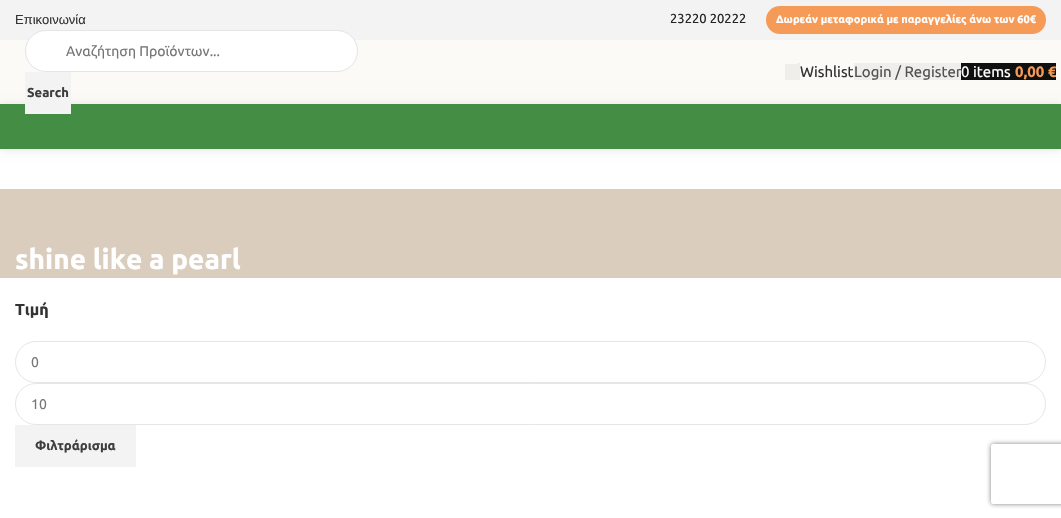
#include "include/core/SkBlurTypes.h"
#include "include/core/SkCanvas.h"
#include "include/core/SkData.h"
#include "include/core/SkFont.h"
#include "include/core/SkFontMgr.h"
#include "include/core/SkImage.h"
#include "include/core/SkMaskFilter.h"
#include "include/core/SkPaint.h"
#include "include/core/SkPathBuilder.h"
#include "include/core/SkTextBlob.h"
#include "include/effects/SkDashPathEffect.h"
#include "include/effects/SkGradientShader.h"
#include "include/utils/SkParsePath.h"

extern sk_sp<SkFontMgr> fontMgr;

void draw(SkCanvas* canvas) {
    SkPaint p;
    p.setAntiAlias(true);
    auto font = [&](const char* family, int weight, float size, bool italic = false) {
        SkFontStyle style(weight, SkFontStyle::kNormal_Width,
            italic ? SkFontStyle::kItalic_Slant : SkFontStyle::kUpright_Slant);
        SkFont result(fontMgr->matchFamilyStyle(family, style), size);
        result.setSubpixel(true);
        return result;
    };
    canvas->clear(0xFFFFFFFF);
    p.setColor(0xFFF3F3F3);
    canvas->drawRect(SkRect::MakeLTRB(0, 0, 1061, 40), p);
    auto font1 = font("Liberation Sans", 400, 13);
    p.setColor(0xFF333333);
    canvas->drawString("Επικοινωνία", 15, 24, font1, p);
    auto font2 = font("Ubuntu", 400, 13);
    p.setColor(0xFF242424);
    canvas->drawString("23220 20222", 670, 23, font2, p);
    p.setColor(0xFFF59A57);
    canvas->drawRoundRect(SkRect::MakeLTRB(766, 6, 1046, 34), 14, 14, p);
    auto font3 = font("Ubuntu", 700, 11);
    p.setColor(0xFFFFFFFF);
    canvas->drawString("Δωρεάν μεταφορικά με παραγγελίες άνω των 60€", 776, 23, font3, p);
    p.setColor(0xFFFBFAF7);
    canvas->drawRect(SkRect::MakeLTRB(0, 40, 1061, 104), p);
    p.setColor(0xFFFFFFFF);
    canvas->drawRoundRect(SkRect::MakeLTRB(25, 30, 358, 72), 21, 21, p);
    p.setStyle(SkPaint::kStroke_Style);
    p.setStrokeWidth(1);
    p.setColor(0x1A000000);
    canvas->drawRoundRect(SkRect::MakeLTRB(25.5f, 30.5f, 357.5f, 71.5f), 20.5f, 20.5f, p);
    auto font4 = font("Ubuntu", 400, 14);
    p.setStyle(SkPaint::kFill_Style);
    p.setColor(0xFF777777);
    canvas->drawString("Αναζήτηση Προϊόντων...", 66, 56, font4, p);
    p.setColor(0x1A000000);
    p.setMaskFilter(SkMaskFilter::MakeBlur(kNormal_SkBlurStyle, 4));
    canvas->drawRect(SkRect::MakeLTRB(0, 105, 1061, 150), p);
    p.setMaskFilter(nullptr);
    p.setColor(0xFF438E44);
    canvas->drawRect(SkRect::MakeLTRB(0, 104, 1061, 149), p);
    p.setColor(0xFFF3F3F3);
    canvas->drawRect(SkRect::MakeLTRB(25, 72, 71, 114), p);
    auto font5 = font("Ubuntu", 700, 13);
    p.setColor(0xFF3E3E3E);
    canvas->drawString("Search", 27, 97, font5, p);
    auto font6 = font("Ubuntu", 400, 15);
    p.setColor(0xFF333333);
    canvas->drawString("Wishlist", 800, 77, font6, p);
    {
        const struct { float l, t, r, b; SkColor color; } items[] = {
            {785, 64, 797, 80, 0xFFEFEEEB},
            {797, 63, 800, 80, 0xFFEFEEEB},
            {854, 63, 961, 80, 0xFFEFEEEB},
        };
        for (auto [l, t, r, b, color] : items) {
            p.setColor(color);
            canvas->drawRect(SkRect::MakeLTRB(l, t, r, b), p);
        }
    }
    p.setColor(0xFF535352);
    canvas->drawString("Login / Register", 854, 77, font6, p);
    p.setColor(0xFF101010);
    canvas->drawRect(SkRect::MakeLTRB(961, 63, 1056, 80), p);
    p.setColor(0xFFFFFFFF);
    canvas->drawString("0 items", 961, 77, font6, p);
    auto font7 = font("Ubuntu", 700, 15);
    p.setColor(0xFFF59A57);
    canvas->drawString("0,00 €", 1015, 77, font7, p);
    p.setColor(0xFFDBCDBD);
    canvas->drawRect(SkRect::MakeLTRB(0, 189, 1061, 278), p);
    auto font8 = font("Ubuntu", 700, 28);
    p.setColor(0xFFFFFFFF);
    canvas->drawString("shine like a pearl", 15, 269, font8, p);
    auto font9 = font("Ubuntu", 700, 16);
    p.setColor(0xFF333333);
    canvas->drawString("Τιμή", 15, 315, font9, p);
    p.setStyle(SkPaint::kStroke_Style);
    p.setColor(0xFFE6E6E6);
    canvas->drawRoundRect(SkRect::MakeLTRB(15.5f, 341.5f, 1045.5f, 382.5f), 20.5f, 20.5f, p);
    p.setStyle(SkPaint::kFill_Style);
    p.setColor(0xFF777777);
    canvas->drawString("0", 31, 367, font4, p);
    p.setStyle(SkPaint::kStroke_Style);
    p.setColor(0xFFE6E6E6);
    canvas->drawRoundRect(SkRect::MakeLTRB(15.5f, 383.5f, 1045.5f, 424.5f), 20.5f, 20.5f, p);
    p.setStyle(SkPaint::kFill_Style);
    p.setColor(0xFF777777);
    canvas->drawString("10", 31, 409, font4, p);
    p.setColor(0xFFF3F3F3);
    canvas->drawRect(SkRect::MakeLTRB(15, 425, 136, 467), p);
    p.setColor(0xFF3E3E3E);
    canvas->drawString("Φιλτράρισμα", 35, 450, font5, p);
    canvas->save();
    canvas->clipPath(SkPathBuilder(SkPathFillType::kEvenOdd).moveTo(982, 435).lineTo(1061, 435).lineTo(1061, 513).lineTo(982, 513).close().moveTo(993, 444).lineTo(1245, 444).cubicTo(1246, 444, 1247, 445, 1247, 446).lineTo(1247, 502).cubicTo(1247, 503, 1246, 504, 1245, 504).lineTo(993, 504).cubicTo(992, 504, 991, 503, 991, 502).lineTo(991, 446).cubicTo(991, 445, 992, 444, 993, 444).close().detach(), true);
    p.setColor(0xFF808080);
    p.setMaskFilter(SkMaskFilter::MakeBlur(kNormal_SkBlurStyle, 2.5f));
    canvas->drawRoundRect(SkRect::MakeLTRB(991, 444, 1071, 504), 2, 2, p);
    p.setMaskFilter(nullptr);
    canvas->restore();
}
